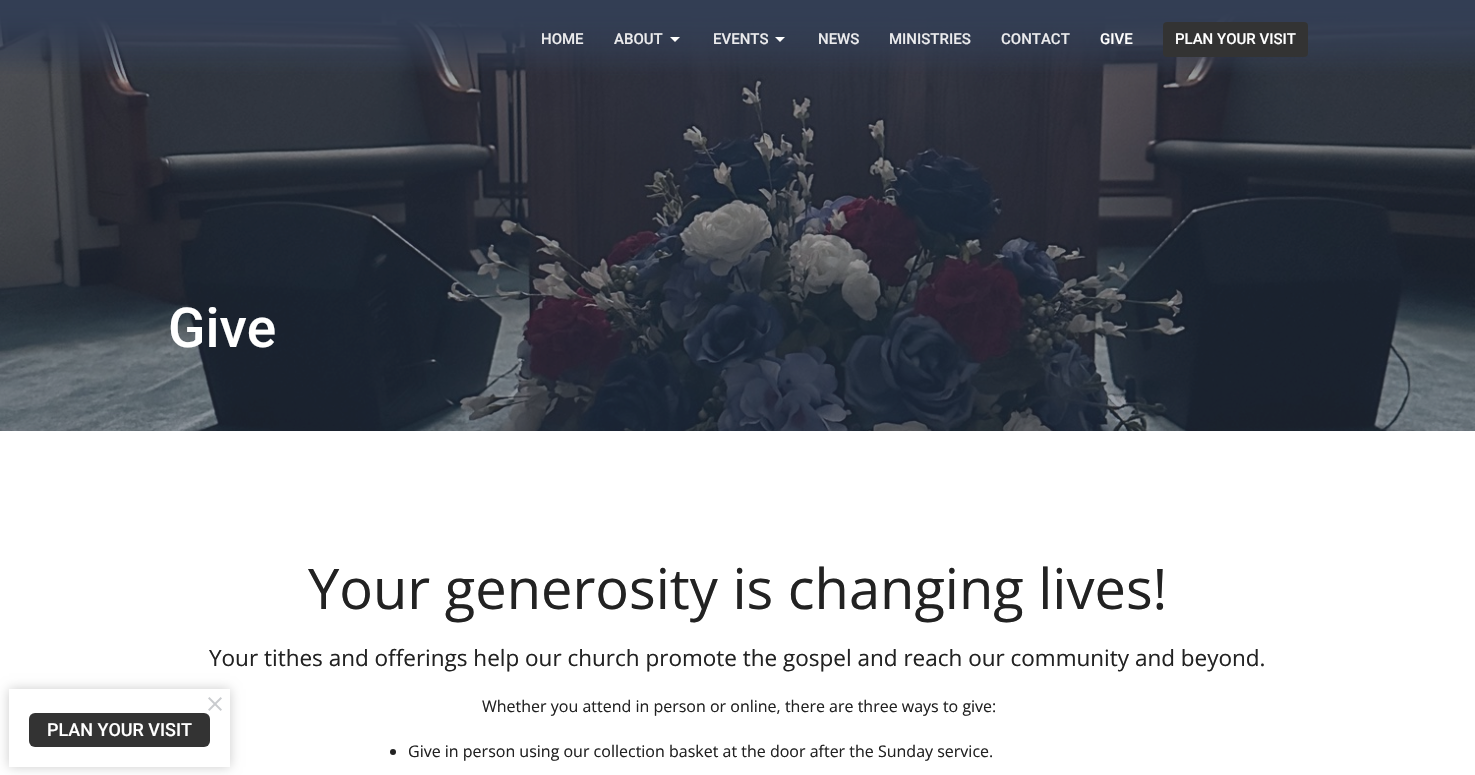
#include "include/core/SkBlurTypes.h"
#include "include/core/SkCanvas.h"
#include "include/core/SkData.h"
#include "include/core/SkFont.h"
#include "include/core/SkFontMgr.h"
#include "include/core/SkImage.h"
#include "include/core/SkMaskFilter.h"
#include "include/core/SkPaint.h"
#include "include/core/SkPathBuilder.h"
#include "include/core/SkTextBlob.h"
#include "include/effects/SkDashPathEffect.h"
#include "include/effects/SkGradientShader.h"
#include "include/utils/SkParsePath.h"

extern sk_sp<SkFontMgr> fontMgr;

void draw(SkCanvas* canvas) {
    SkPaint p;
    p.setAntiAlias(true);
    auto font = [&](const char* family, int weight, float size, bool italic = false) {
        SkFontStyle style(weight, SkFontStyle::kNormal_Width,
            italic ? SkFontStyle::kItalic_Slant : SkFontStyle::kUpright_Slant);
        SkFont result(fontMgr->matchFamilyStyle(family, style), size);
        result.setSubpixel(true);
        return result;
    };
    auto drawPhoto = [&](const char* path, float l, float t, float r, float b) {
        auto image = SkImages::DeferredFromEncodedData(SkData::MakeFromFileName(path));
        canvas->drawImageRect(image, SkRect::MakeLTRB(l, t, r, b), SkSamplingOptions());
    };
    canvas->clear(0xFFFFFFFF);
    drawPhoto("media/1.png", 0, 0, 1475, 431);
    auto font1 = font("Roboto", 500, 15);
    p.setColor(0xFFEBEBED);
    canvas->drawString("HOME", 541, 44, font1, p);
    canvas->drawString("ABOUT", 614, 44, font1, p);
    p.setColor(0xFFFFFFFF);
    canvas->drawPath(SkPathBuilder().moveTo(670, 37).lineTo(675, 42).lineTo(680, 37).close().detach(), p);
    p.setColor(0xFFEBEBED);
    canvas->drawString("EVENTS", 713, 44, font1, p);
    p.setColor(0xFFFFFFFF);
    canvas->drawPath(SkPathBuilder().moveTo(775, 37).lineTo(780, 42).lineTo(785, 37).close().detach(), p);
    p.setColor(0xFFEBEBED);
    {
        const struct { const char* s; float x, y; } items[] = {
            {"NEWS", 818, 44},
            {"MINISTRIES", 889, 44},
            {"CONTACT", 1001, 44},
        };
        for (auto [s, x, y] : items) {
            canvas->drawString(s, x, y, font1, p);
        }
    }
    p.setColor(0xFFFFFFFF);
    canvas->drawString("GIVE", 1100, 44, font1, p);
    p.setColor(0xFF333333);
    canvas->drawRoundRect(SkRect::MakeLTRB(1163, 22, 1308, 57), 4, 4, p);
    p.setColor(0xFFFFFFFF);
    canvas->drawString("PLAN YOUR VISIT", 1175, 44, font1, p);
    auto font2 = font("Roboto", 500, 55);
    canvas->drawString("Give", 168, 347, font2, p);
    canvas->save();
    canvas->clipPath(SkPathBuilder(SkPathFillType::kEvenOdd).moveTo(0, 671).lineTo(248, 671).lineTo(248, 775).lineTo(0, 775).close().moveTo(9, 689).lineTo(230, 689).lineTo(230, 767).lineTo(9, 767).close().detach(), true);
    p.setColor(0x33000000);
    p.setMaskFilter(SkMaskFilter::MakeBlur(kNormal_SkBlurStyle, 5.5f));
    canvas->drawRect(SkRect::MakeLTRB(9, 689, 230, 767), p);
    p.setMaskFilter(nullptr);
    canvas->restore();
    drawPhoto("media/2.png", 208, 697, 222, 711);
    p.setColor(0xFF333333);
    canvas->drawRoundRect(SkRect::MakeLTRB(29, 713, 210, 747), 6, 6, p);
    auto font3 = font("Roboto", 500, 18);
    p.setColor(0xFFFFFFFF);
    canvas->drawString("PLAN YOUR VISIT", 47, 736, font3, p);
    auto font4 = font("Open Sans", 400, 56);
    p.setColor(0xFF222222);
    canvas->drawString("Your generosity is changing lives!", 308, 609, font4, p);
    auto font5 = font("Open Sans", 400, 22.5f);
    canvas->drawString("Your tithes and offerings help our church promote the gospel and reach our community and beyond.", 209, 666, font5, p);
    auto font6 = font("Open Sans", 400, 16);
    canvas->drawString("Whether you attend in person or online, there are three ways to give:", 482, 712, font6, p);
    canvas->drawCircle(393, 752, 3, p);
    canvas->drawString("Give in person using our collection basket at the door after the Sunday service.", 408, 757, font6, p);
}
